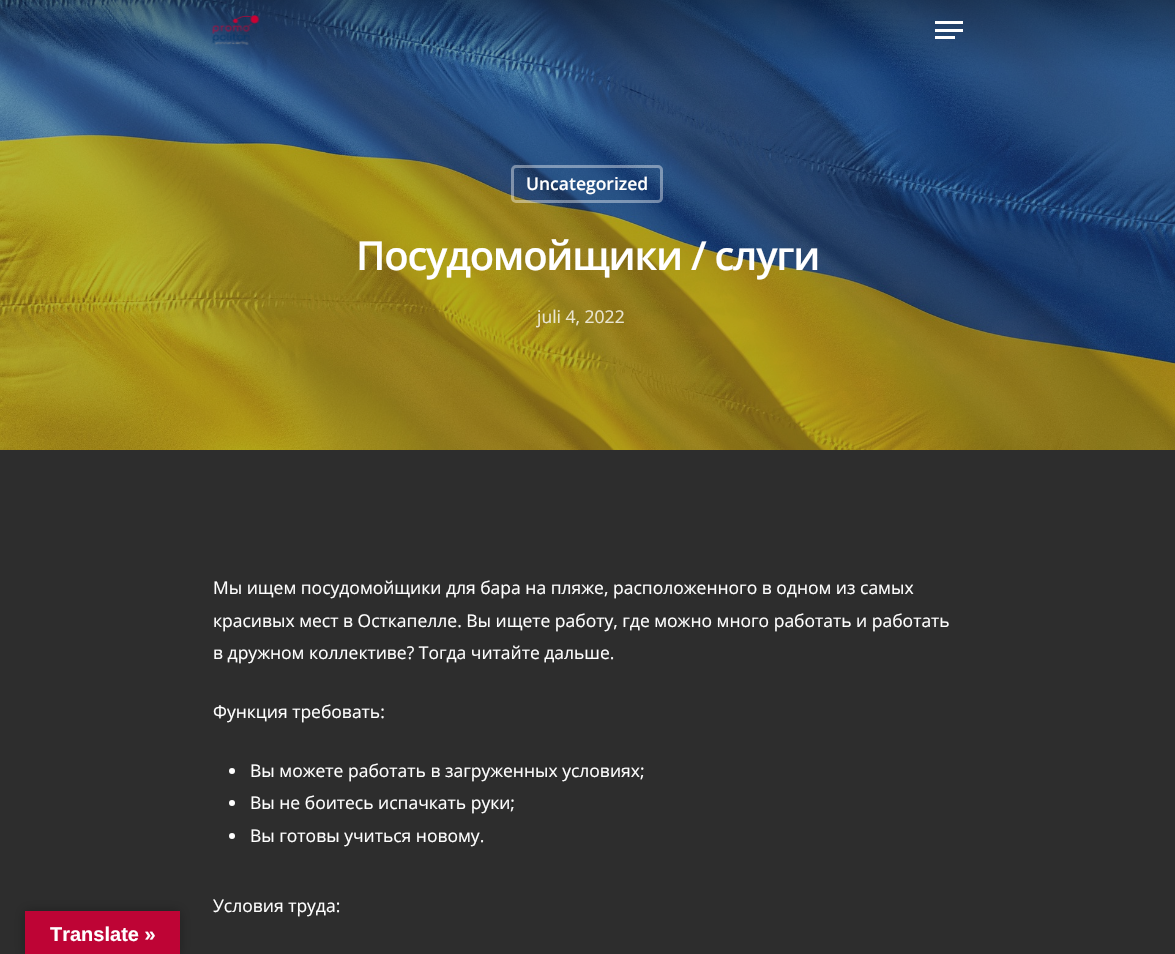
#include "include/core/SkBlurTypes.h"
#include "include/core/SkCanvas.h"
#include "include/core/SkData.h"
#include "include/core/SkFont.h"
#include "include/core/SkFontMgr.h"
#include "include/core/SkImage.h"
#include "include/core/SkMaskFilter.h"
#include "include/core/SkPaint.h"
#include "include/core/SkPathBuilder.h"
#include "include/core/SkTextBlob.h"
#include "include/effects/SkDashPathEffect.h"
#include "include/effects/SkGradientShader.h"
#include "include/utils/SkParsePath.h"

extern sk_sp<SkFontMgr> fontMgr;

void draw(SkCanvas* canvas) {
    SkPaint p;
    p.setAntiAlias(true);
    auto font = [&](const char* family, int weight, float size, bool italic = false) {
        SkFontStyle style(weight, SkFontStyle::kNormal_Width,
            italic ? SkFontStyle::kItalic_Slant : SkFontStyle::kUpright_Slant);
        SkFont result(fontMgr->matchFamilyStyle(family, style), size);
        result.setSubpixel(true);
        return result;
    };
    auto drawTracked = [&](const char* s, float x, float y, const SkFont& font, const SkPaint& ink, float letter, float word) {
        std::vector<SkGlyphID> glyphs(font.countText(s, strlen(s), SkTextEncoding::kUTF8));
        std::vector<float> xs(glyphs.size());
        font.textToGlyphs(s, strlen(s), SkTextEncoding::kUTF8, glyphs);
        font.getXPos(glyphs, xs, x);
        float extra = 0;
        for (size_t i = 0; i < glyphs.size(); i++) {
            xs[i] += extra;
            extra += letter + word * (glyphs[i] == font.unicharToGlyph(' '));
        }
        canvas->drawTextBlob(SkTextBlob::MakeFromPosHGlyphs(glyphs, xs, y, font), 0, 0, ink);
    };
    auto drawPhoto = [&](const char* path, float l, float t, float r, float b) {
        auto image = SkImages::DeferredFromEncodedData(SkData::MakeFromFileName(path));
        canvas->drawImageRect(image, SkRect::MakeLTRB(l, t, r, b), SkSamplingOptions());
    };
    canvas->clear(0xFF2D2D2D);
    drawPhoto("media/2.png", 0, 0, 1175, 450);
    drawPhoto("media/1.png", 212, 15, 260, 45);
    {
        const struct { float l, t, r, b; SkColor color; } items[] = {
            {935, 21, 963, 24, 0xFFFFFFFF},
            {935, 36, 955, 39, 0xFFFFFFFF},
            {935, 29, 963, 32, 0xFFFFFFFF},
        };
        for (auto [l, t, r, b, color] : items) {
            p.setColor(color);
            canvas->drawRect(SkRect::MakeLTRB(l, t, r, b), p);
        }
    }
    p.setStyle(SkPaint::kStroke_Style);
    p.setStrokeWidth(3);
    p.setColor(0x66FFFFFF);
    canvas->drawRoundRect(SkRect::MakeLTRB(512.5f, 166.5f, 661.5f, 201.5f), 3.5f, 3.5f, p);
    auto font1 = font("Open Sans", 600, 17.5f);
    p.setStyle(SkPaint::kFill_Style);
    p.setColor(0xFFFFFFFF);
    canvas->drawString("Uncategorized", 526, 190, font1, p);
    auto font2 = font("Open Sans", 600, 40);
    drawTracked("Посудомойщики / слуги", 356, 270, font2, p, -1.25f, 0);
    auto font3 = font("Open Sans", 400, 17.5f);
    p.setColor(0xFFEAE6D1);
    canvas->drawString("juli 4, 2022", 537, 323, font3, p);
    p.setColor(0xFFFFFFFF);
    {
        const struct { const char* s; float x, y; } items[] = {
            {"Мы ищем посудомойщики для бара на пляже, расположенного в одном из самых", 213, 594},
            {"красивых мест в Осткапелле. Вы ищете работу, где можно много работать и работать", 213, 627},
            {"в дружном коллективе? Тогда читайте дальше.", 213, 659},
            {"Функция требовать:", 213, 718},
        };
        for (auto [s, x, y] : items) {
            canvas->drawString(s, x, y, font3, p);
        }
    }
    canvas->drawCircle(232, 771, 3, p);
    canvas->drawString("Вы можете работать в загруженных условиях;", 250, 777, font3, p);
    canvas->drawCircle(232, 803, 3, p);
    canvas->drawString("Вы не боитесь испачкать руки;", 250, 809, font3, p);
    canvas->drawCircle(232, 836, 3, p);
    canvas->drawString("Вы готовы учиться новому.", 250, 842, font3, p);
    canvas->drawString("Условия труда:", 213, 912, font3, p);
    p.setColor(0x4D000000);
    p.setMaskFilter(SkMaskFilter::MakeBlur(kNormal_SkBlurStyle, 5.5f));
    canvas->drawRect(SkRect::MakeLTRB(25, 911, 180, 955), p);
    p.setMaskFilter(nullptr);
    p.setColor(0xFFBE0435);
    canvas->drawRect(SkRect::MakeLTRB(25, 911, 180, 954), p);
    auto font4 = font("Liberation Sans", 700, 20);
    p.setColor(0xFFFFFFFF);
    canvas->drawString("Translate »", 50, 941, font4, p);
}
